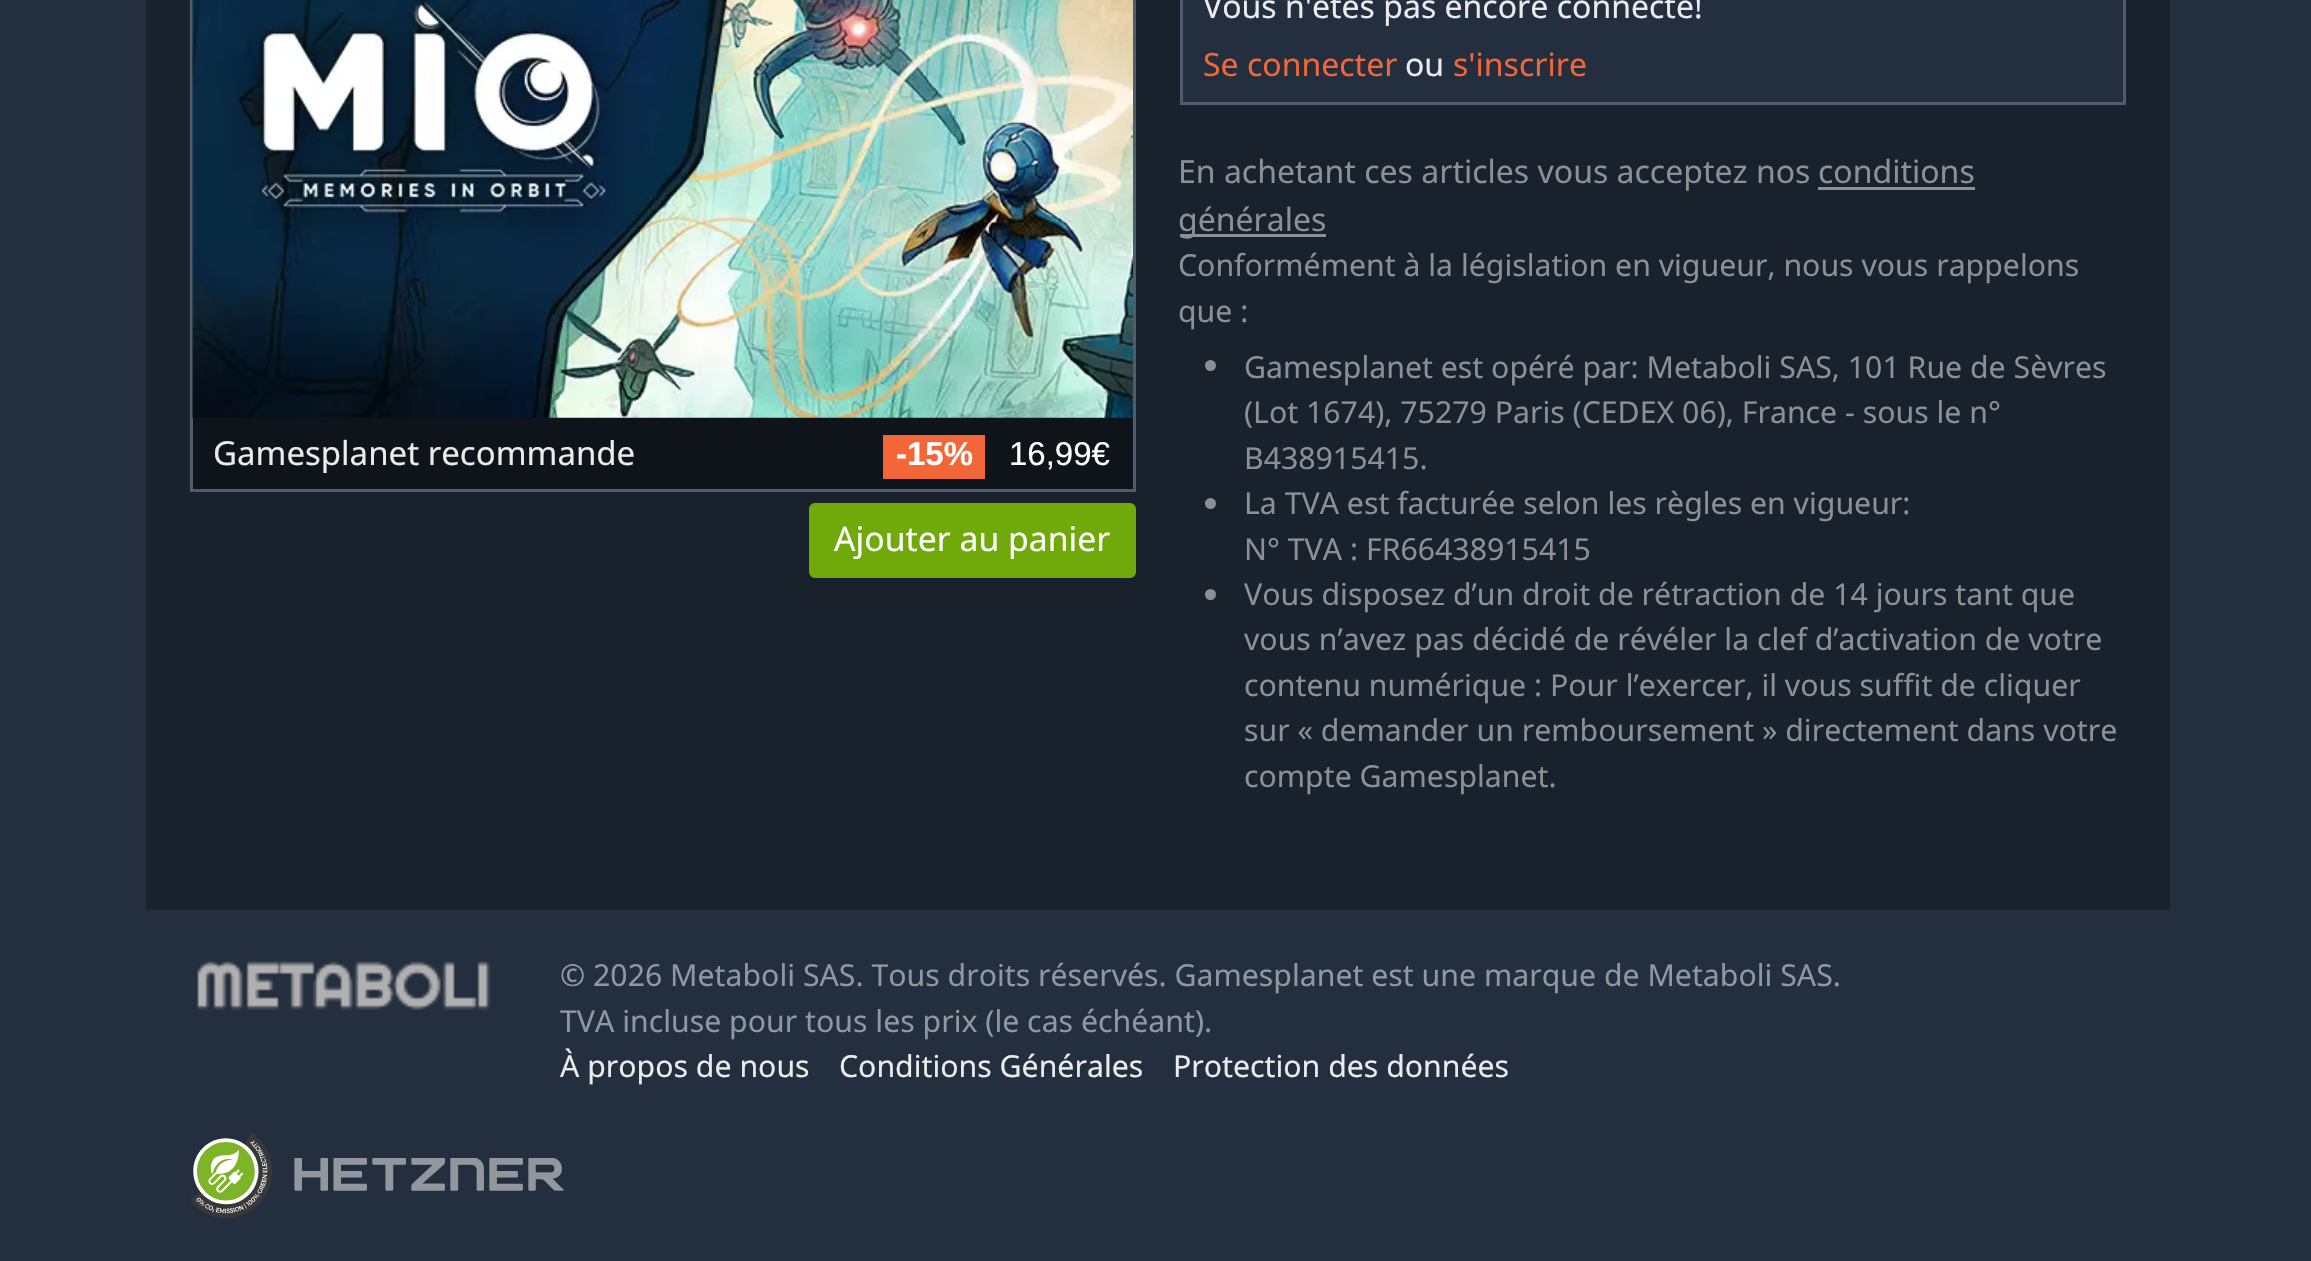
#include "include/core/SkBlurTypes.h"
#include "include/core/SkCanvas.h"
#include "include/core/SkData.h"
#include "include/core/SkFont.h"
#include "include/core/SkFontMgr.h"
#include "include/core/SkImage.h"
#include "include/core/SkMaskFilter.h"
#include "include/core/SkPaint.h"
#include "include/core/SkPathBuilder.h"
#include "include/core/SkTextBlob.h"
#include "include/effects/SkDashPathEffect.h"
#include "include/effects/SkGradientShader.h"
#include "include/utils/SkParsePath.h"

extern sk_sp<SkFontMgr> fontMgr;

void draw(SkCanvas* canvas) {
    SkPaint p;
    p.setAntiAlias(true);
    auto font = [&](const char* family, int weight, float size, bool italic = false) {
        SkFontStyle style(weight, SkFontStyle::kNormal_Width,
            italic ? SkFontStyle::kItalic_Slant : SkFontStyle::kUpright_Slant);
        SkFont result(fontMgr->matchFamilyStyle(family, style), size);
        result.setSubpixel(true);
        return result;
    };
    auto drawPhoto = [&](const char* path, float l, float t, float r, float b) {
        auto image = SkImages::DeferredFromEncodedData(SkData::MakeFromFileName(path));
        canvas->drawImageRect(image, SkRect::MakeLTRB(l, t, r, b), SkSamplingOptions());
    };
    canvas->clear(0xFF232F3E);
    p.setColor(0xFF19212C);
    canvas->drawRect(SkRect::MakeLTRB(146, 0, 2170, 910), p);
    p.setColor(0xFF0F141A);
    canvas->drawRect(SkRect::MakeLTRB(193, 417, 1133, 489), p);
    p.setStyle(SkPaint::kStroke_Style);
    p.setStrokeWidth(3);
    p.setColor(0xFF4E5D6C);
    canvas->drawRect(SkRect::MakeLTRB(191.5f, -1.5f, 1134.5f, 490.5f), p);
    drawPhoto("media/1.png", 192, 0, 1133, 418);
    auto font1 = font("Noto Sans", 400, 33);
    p.setStyle(SkPaint::kFill_Style);
    p.setColor(0xFFEBEBEB);
    canvas->drawString("Gamesplanet recommande", 213, 465, font1, p);
    p.setColor(0xFFF26638);
    canvas->drawRect(SkRect::MakeLTRB(883, 435, 985, 479), p);
    auto font2 = font("Liberation Sans", 700, 33);
    p.setColor(0xFFFFFFFF);
    canvas->drawString("-15%", 896, 465, font2, p);
    auto font3 = font("Liberation Sans", 400, 33);
    canvas->drawString("16,99€", 1009, 465, font3, p);
    p.setColor(0xFF6FAA0A);
    canvas->drawRoundRect(SkRect::MakeLTRB(810.5f, 504.5f, 1134.5f, 576.5f), 4.5f, 4.5f, p);
    p.setStyle(SkPaint::kStroke_Style);
    canvas->drawRoundRect(SkRect::MakeLTRB(810.5f, 504.5f, 1134.5f, 576.5f), 4.5f, 4.5f, p);
    auto font4 = font("Noto Sans", 400, 33.75f);
    p.setStyle(SkPaint::kFill_Style);
    p.setColor(0xFFFFFFFF);
    canvas->drawString("Ajouter au panier", 834, 551, font4, p);
    p.setColor(0xFF232F3E);
    canvas->drawRect(SkRect::MakeLTRB(1181.5f, -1.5f, 2124.5f, 103.5f), p);
    p.setStyle(SkPaint::kStroke_Style);
    p.setColor(0xFF4E5D6C);
    canvas->drawRect(SkRect::MakeLTRB(1181.5f, -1.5f, 2124.5f, 103.5f), p);
    auto font5 = font("Noto Sans", 400, 32);
    p.setStyle(SkPaint::kFill_Style);
    p.setColor(0xFFEBEBEB);
    canvas->drawString("Vous n'êtes pas encore connecté!", 1203, 18, font5, p);
    p.setColor(0xFFF26638);
    canvas->drawString("Se connecter", 1203, 76, font5, p);
    p.setColor(0xFFEBEBEB);
    canvas->drawString("ou", 1405, 76, font5, p);
    p.setColor(0xFFF26638);
    canvas->drawString("s'inscrire", 1453, 76, font5, p);
    p.setColor(0xFF8C9096);
    canvas->drawString("En achetant ces articles vous acceptez nos", 1178, 183, font5, p);
    canvas->drawString("conditions", 1818, 183, font5, p);
    canvas->drawRect(SkRect::MakeLTRB(1818, 187, 1975, 190), p);
    canvas->drawRect(SkRect::MakeLTRB(1180, 234, 1326, 237), p);
    canvas->drawString("générales", 1178, 231, font5, p);
    auto font6 = font("Noto Sans", 400, 30.25f);
    canvas->drawString("Conformément à la législation en vigueur, nous vous rappelons", 1178, 276, font6, p);
    canvas->drawString("que :", 1178, 322, font6, p);
    canvas->drawCircle(1210.5f, 365.5f, 5.5f, p);
    {
        const struct { const char* s; float x, y; } items[] = {
            {"Gamesplanet est opéré par: Metaboli SAS, 101 Rue de Sèvres", 1244, 378},
            {"(Lot 1674), 75279 Paris (CEDEX 06), France - sous le n°", 1244, 423},
            {"B438915415.", 1244, 469},
        };
        for (auto [s, x, y] : items) {
            canvas->drawString(s, x, y, font6, p);
        }
    }
    canvas->drawCircle(1210.5f, 503.5f, 5.5f, p);
    canvas->drawString("La TVA est facturée selon les règles en vigueur:", 1244, 514, font6, p);
    canvas->drawString("N° TVA : FR66438915415", 1244, 560, font6, p);
    canvas->drawCircle(1210.5f, 594.5f, 5.5f, p);
    {
        const struct { const char* s; float x, y; } items[] = {
            {"Vous disposez d’un droit de rétraction de 14 jours tant que", 1244, 605},
            {"vous n’avez pas décidé de révéler la clef d’activation de votre", 1244, 650},
            {"contenu numérique : Pour l’exercer, il vous suffit de cliquer", 1244, 696},
            {"sur « demander un remboursement » directement dans votre", 1244, 741},
            {"compte Gamesplanet.", 1244, 787},
        };
        for (auto [s, x, y] : items) {
            canvas->drawString(s, x, y, font6, p);
        }
    }
    drawPhoto("media/2.png", 197, 961, 491, 1010);
    p.setColor(0xFF91979F);
    canvas->drawString("© 2026 Metaboli SAS. Tous droits réservés. Gamesplanet est une marque de Metaboli SAS.", 560, 986, font6, p);
    canvas->drawString("TVA incluse pour tous les prix (le cas échéant).", 560, 1032, font6, p);
    p.setColor(0xFFEBEBEB);
    {
        const struct { const char* s; float x, y; } items[] = {
            {"À propos de nous", 560, 1077},
            {"Conditions Générales", 839, 1077},
            {"Protection des données", 1173, 1077},
        };
        for (auto [s, x, y] : items) {
            canvas->drawString(s, x, y, font6, p);
        }
    }
    drawPhoto("media/3.png", 190, 1133, 272, 1218);
    drawPhoto("media/4.png", 294, 1158, 564, 1191);
}
